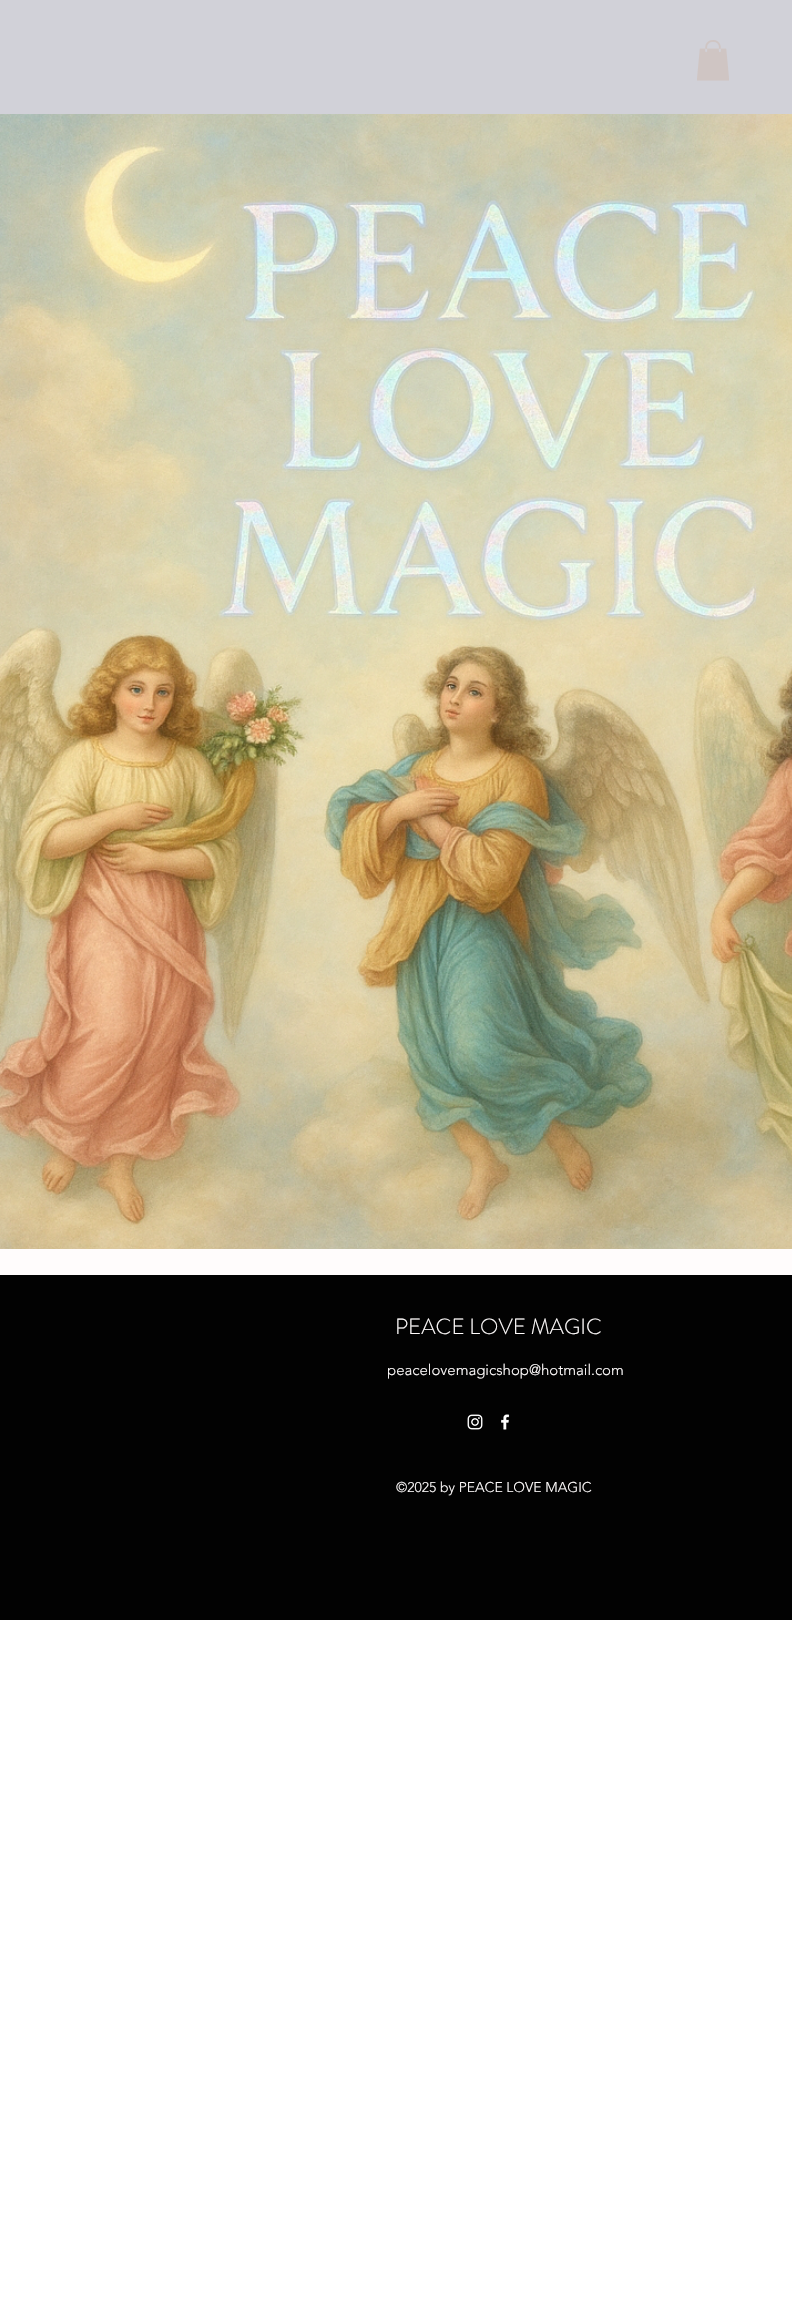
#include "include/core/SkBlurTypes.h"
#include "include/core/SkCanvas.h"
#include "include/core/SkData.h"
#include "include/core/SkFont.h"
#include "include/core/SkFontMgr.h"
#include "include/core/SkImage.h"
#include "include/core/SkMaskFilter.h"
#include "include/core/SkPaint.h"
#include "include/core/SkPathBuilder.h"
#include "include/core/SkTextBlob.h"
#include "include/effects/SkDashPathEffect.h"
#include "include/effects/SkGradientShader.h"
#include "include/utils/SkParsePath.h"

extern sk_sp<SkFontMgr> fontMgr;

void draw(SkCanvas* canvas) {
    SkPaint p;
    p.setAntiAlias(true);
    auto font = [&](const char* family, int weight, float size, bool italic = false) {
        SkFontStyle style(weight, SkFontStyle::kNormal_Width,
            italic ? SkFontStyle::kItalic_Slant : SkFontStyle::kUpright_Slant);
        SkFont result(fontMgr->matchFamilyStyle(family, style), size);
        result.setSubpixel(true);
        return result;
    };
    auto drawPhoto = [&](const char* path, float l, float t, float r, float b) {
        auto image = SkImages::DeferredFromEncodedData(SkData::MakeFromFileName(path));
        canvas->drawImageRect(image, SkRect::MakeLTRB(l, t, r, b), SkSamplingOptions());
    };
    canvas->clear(0xFFFFFFFF);
    p.setColor(0xFFD1D1D8);
    canvas->drawRect(SkRect::MakeLTRB(0, 0, 792, 114), p);
    drawPhoto("media/1.png", 697, 40, 729, 81);
    drawPhoto("media/2.png", 0, 114, 792, 1249);
    p.setColor(0xFFFFFCFC);
    canvas->drawRect(SkRect::MakeLTRB(0, 1249, 792, 1275), p);
    p.setColor(0xFF020202);
    canvas->drawRect(SkRect::MakeLTRB(0, 1275, 792, 1620), p);
    auto font1 = font("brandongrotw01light", 300, 22);
    p.setColor(0xFFFFFCFC);
    canvas->drawString("PEACE LOVE MAGIC", 395, 1334, font1, p);
    auto font2 = font("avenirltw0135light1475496", 300, 15);
    canvas->drawString("peacelovemagicshop@hotmail.com", 387, 1375, font2, p);
    drawPhoto("media/3.png", 467, 1414, 483, 1430);
    drawPhoto("media/4.png", 501, 1414, 510, 1430);
    auto font3 = font("avenirltw0135light1475496", 300, 14);
    canvas->drawString("©2025 by PEACE LOVE MAGIC", 396, 1492, font3, p);
}
